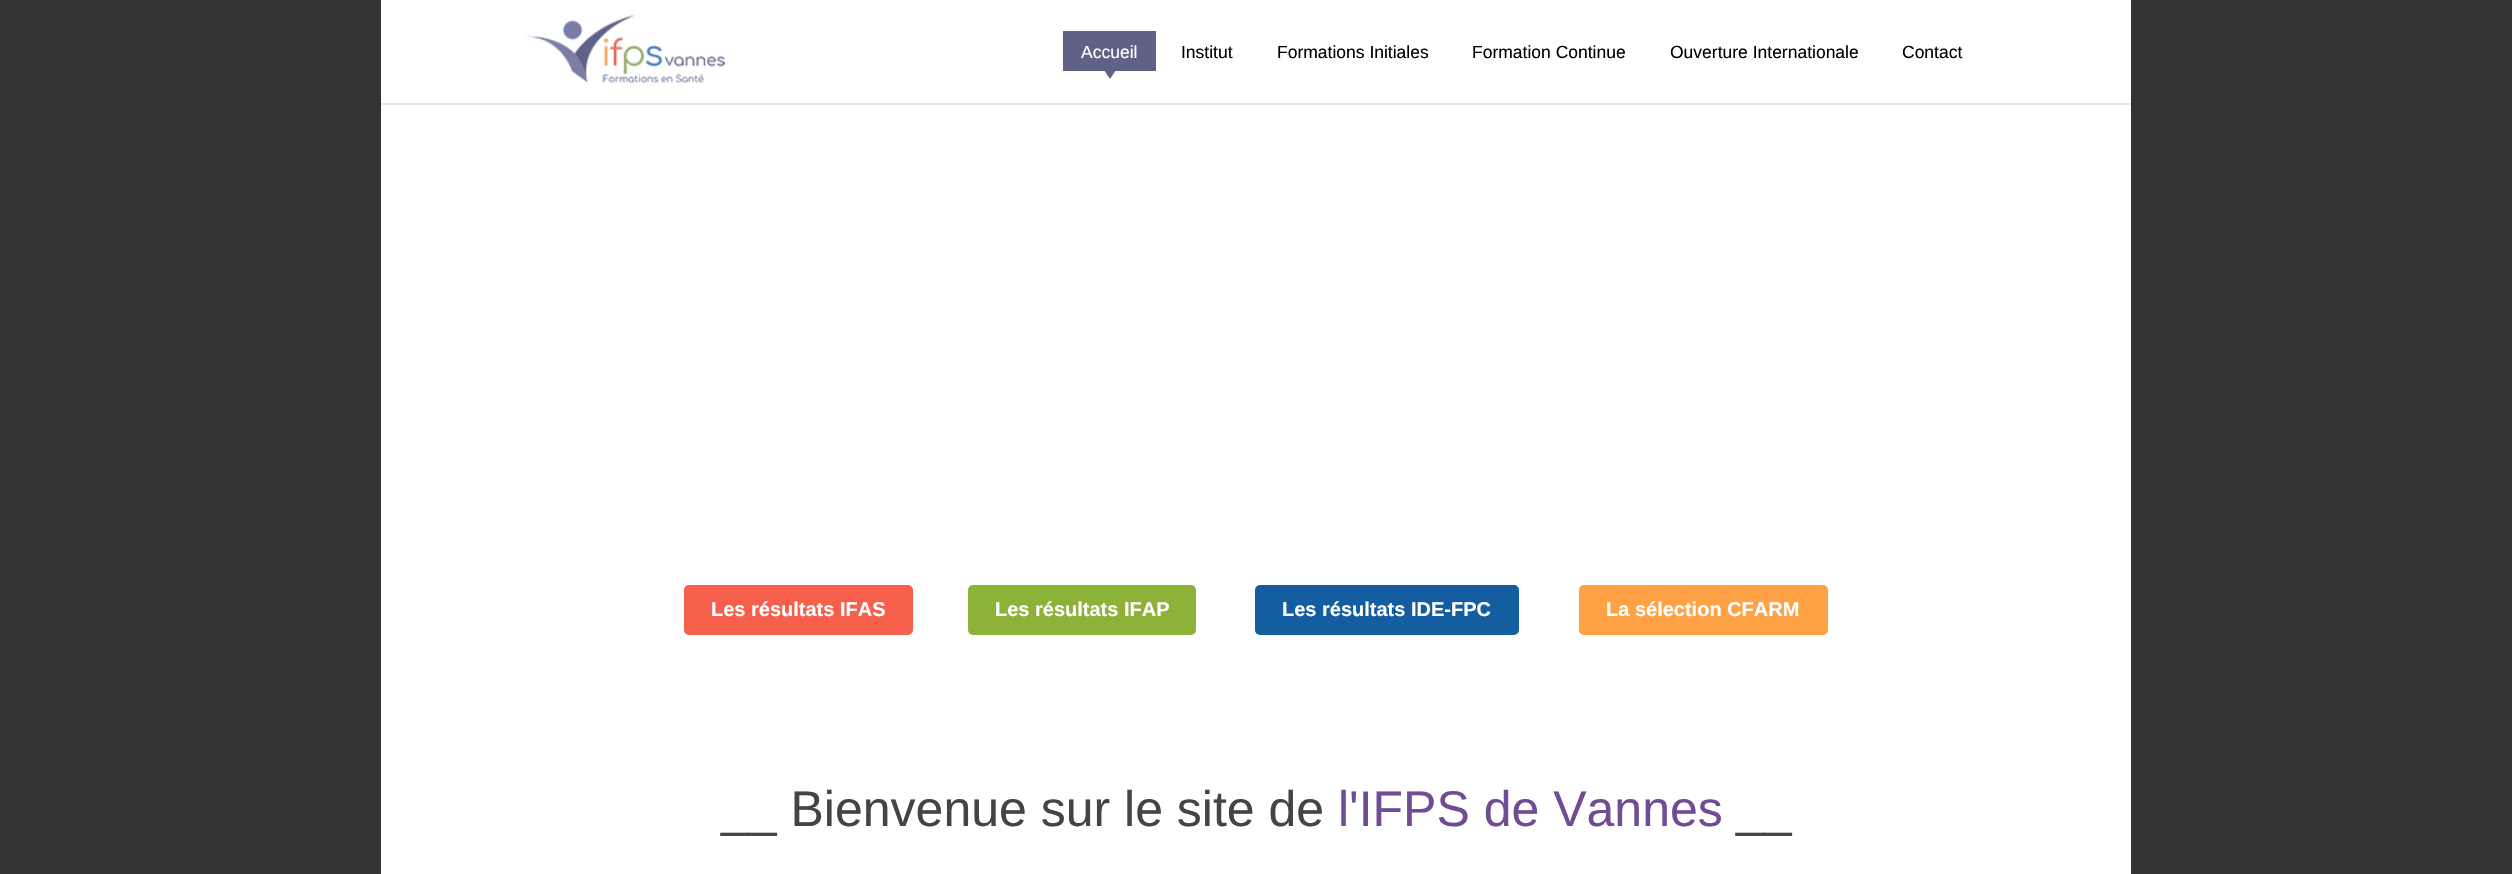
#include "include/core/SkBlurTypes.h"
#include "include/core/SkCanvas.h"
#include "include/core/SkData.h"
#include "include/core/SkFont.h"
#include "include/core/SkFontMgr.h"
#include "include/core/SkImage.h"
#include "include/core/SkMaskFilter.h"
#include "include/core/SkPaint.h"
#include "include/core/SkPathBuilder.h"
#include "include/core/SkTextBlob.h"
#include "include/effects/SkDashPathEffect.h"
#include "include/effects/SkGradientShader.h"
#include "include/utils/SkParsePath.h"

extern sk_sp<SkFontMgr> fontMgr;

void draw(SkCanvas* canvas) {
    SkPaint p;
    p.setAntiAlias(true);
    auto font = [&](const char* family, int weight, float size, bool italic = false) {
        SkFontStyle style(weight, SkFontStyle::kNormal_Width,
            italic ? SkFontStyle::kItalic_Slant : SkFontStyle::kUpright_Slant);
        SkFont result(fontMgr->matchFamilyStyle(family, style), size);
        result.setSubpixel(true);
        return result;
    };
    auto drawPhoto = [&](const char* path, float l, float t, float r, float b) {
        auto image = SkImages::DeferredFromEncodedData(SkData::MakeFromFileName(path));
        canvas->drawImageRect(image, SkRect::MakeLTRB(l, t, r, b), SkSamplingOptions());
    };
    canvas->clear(0xFF333333);
    p.setColor(0xFFFFFFFF);
    canvas->drawRect(SkRect::MakeLTRB(381, 103, 2131, 874), p);
    p.setColor(0x1A000000);
    p.setMaskFilter(SkMaskFilter::MakeBlur(kNormal_SkBlurStyle, 0.5f));
    canvas->drawRect(SkRect::MakeLTRB(381, 3, 2131, 105), p);
    p.setMaskFilter(nullptr);
    p.setColor(0xFFFFFFFF);
    canvas->drawRect(SkRect::MakeLTRB(381, 0, 2131, 103), p);
    drawPhoto("media/1.png", 526, 15, 725, 83);
    p.setColor(0xFF5F6187);
    canvas->drawRect(SkRect::MakeLTRB(1063, 31, 1156, 71), p);
    auto font1 = font("Liberation Sans", 400, 17.5f);
    p.setColor(0xFFFFFFFF);
    canvas->drawString("Accueil", 1081, 58, font1, p);
    p.setColor(0xFF5F6187);
    canvas->drawPath(SkPathBuilder().moveTo(1104, 70).lineTo(1116, 70).lineTo(1110, 79).close().detach(), p);
    p.setColor(0xFF000000);
    {
        const struct { const char* s; float x, y; } items[] = {
            {"Institut", 1181, 58},
            {"Formations Initiales", 1277, 58},
            {"Formation Continue", 1472, 58},
            {"Ouverture Internationale", 1670, 58},
            {"Contact", 1902, 58},
        };
        for (auto [s, x, y] : items) {
            canvas->drawString(s, x, y, font1, p);
        }
    }
    p.setColor(0xFFF55F4C);
    canvas->drawRoundRect(SkRect::MakeLTRB(684, 585, 913, 635), 5, 5, p);
    auto font2 = font("Liberation Sans", 700, 20);
    p.setColor(0xFFFFFFFF);
    canvas->drawString("Les résultats IFAS", 711, 616, font2, p);
    p.setColor(0xFF8CB238);
    canvas->drawRoundRect(SkRect::MakeLTRB(968, 585, 1196, 635), 5, 5, p);
    p.setColor(0xFFFFFFFF);
    canvas->drawString("Les résultats IFAP", 995, 616, font2, p);
    p.setColor(0xFF145DA0);
    canvas->drawRoundRect(SkRect::MakeLTRB(1255, 585, 1519, 635), 5, 5, p);
    p.setColor(0xFFFFFFFF);
    canvas->drawString("Les résultats IDE-FPC", 1282, 616, font2, p);
    p.setColor(0xFFFFA246);
    canvas->drawRoundRect(SkRect::MakeLTRB(1579, 585, 1828, 635), 5, 5, p);
    p.setColor(0xFFFFFFFF);
    canvas->drawString("La sélection CFARM", 1606, 616, font2, p);
    auto font3 = font("Liberation Sans", 400, 50);
    p.setColor(0xFF444444);
    canvas->drawString("__ Bienvenue sur le site de", 721, 826, font3, p);
    p.setColor(0xFF704C94);
    canvas->drawString("l'IFPS de Vannes", 1338, 826, font3, p);
    p.setColor(0xFF444444);
    canvas->drawString("__", 1736, 826, font3, p);
}
